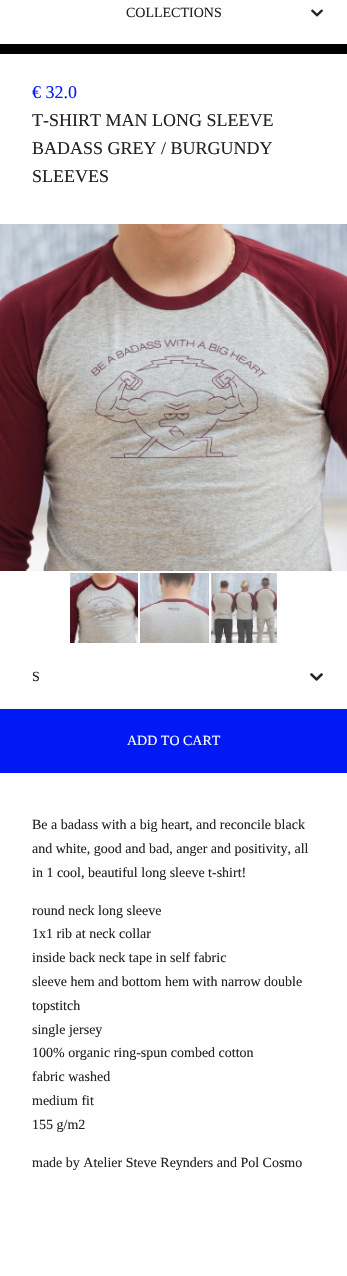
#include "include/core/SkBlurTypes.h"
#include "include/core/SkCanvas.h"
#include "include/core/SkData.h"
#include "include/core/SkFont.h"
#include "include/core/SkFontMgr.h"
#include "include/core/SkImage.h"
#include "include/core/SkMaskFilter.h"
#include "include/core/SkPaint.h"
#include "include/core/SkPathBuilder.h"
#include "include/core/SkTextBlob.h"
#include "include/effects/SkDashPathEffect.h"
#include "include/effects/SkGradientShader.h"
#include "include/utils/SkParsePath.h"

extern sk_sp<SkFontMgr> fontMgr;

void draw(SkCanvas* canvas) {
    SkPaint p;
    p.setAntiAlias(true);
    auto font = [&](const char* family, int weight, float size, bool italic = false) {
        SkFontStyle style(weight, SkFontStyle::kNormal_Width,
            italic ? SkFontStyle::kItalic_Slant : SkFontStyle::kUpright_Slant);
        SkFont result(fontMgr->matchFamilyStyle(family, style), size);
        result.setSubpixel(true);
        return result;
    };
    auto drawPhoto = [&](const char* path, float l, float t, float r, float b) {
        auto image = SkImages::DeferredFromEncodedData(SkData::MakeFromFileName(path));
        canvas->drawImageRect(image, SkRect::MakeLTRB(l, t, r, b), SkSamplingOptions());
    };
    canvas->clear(0xFFFFFFFF);
    p.setStyle(SkPaint::kStroke_Style);
    p.setStrokeWidth(10);
    p.setColor(0xFF000000);
    canvas->drawRect(SkRect::MakeLTRB(-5, -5, 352, 49), p);
    auto font1 = font("Liberation Serif", 400, 14);
    p.setStyle(SkPaint::kFill_Style);
    p.setColor(0xFF222222);
    canvas->drawString("COLLECTIONS", 126, 17, font1, p);
    drawPhoto("media/1.png", 311, 9, 323, 17);
    auto font2 = font("Liberation Serif", 400, 18);
    p.setColor(0xFF0019F5);
    canvas->drawString("€ 32.0", 32, 98, font2, p);
    p.setColor(0xFF222222);
    {
        const struct { const char* s; float x, y; } items[] = {
            {"T-SHIRT MAN LONG SLEEVE", 32, 126},
            {"BADASS GREY / BURGUNDY", 32, 154},
            {"SLEEVES", 32, 182},
        };
        for (auto [s, x, y] : items) {
            canvas->drawString(s, x, y, font2, p);
        }
    }
    drawPhoto("media/2.png", 0, 224, 347, 571);
    drawPhoto("media/3.png", 70, 573, 138, 643);
    drawPhoto("media/4.png", 140, 573, 209, 643);
    drawPhoto("media/5.png", 211, 573, 277, 643);
    canvas->drawString("S", 32, 681, font1, p);
    drawPhoto("media/6.png", 310, 673, 323, 681);
    p.setColor(0xFF0019F5);
    canvas->drawRect(SkRect::MakeLTRB(0, 709, 347, 773), p);
    p.setColor(0xFFFFFFFF);
    canvas->drawString("ADD TO CART", 127, 745, font1, p);
    p.setColor(0xFF222222);
    {
        const struct { const char* s; float x, y; } items[] = {
            {"Be a badass with a big heart, and reconcile black", 32, 829},
            {"and white, good and bad, anger and positivity, all", 32, 853},
            {"in 1 cool, beautiful long sleeve t-shirt!", 32, 877},
            {"round neck long sleeve", 32, 915},
            {"1x1 rib at neck collar", 32, 938},
            {"inside back neck tape in self fabric", 32, 962},
            {"sleeve hem and bottom hem with narrow double", 32, 986},
            {"topstitch", 32, 1010},
            {"single jersey", 32, 1034},
            {"100% organic ring-spun combed cotton", 32, 1057},
            {"fabric washed", 32, 1081},
            {"medium fit", 32, 1105},
            {"155 g/m2", 32, 1129},
            {"made by Atelier Steve Reynders and Pol Cosmo", 32, 1167},
        };
        for (auto [s, x, y] : items) {
            canvas->drawString(s, x, y, font1, p);
        }
    }
}
